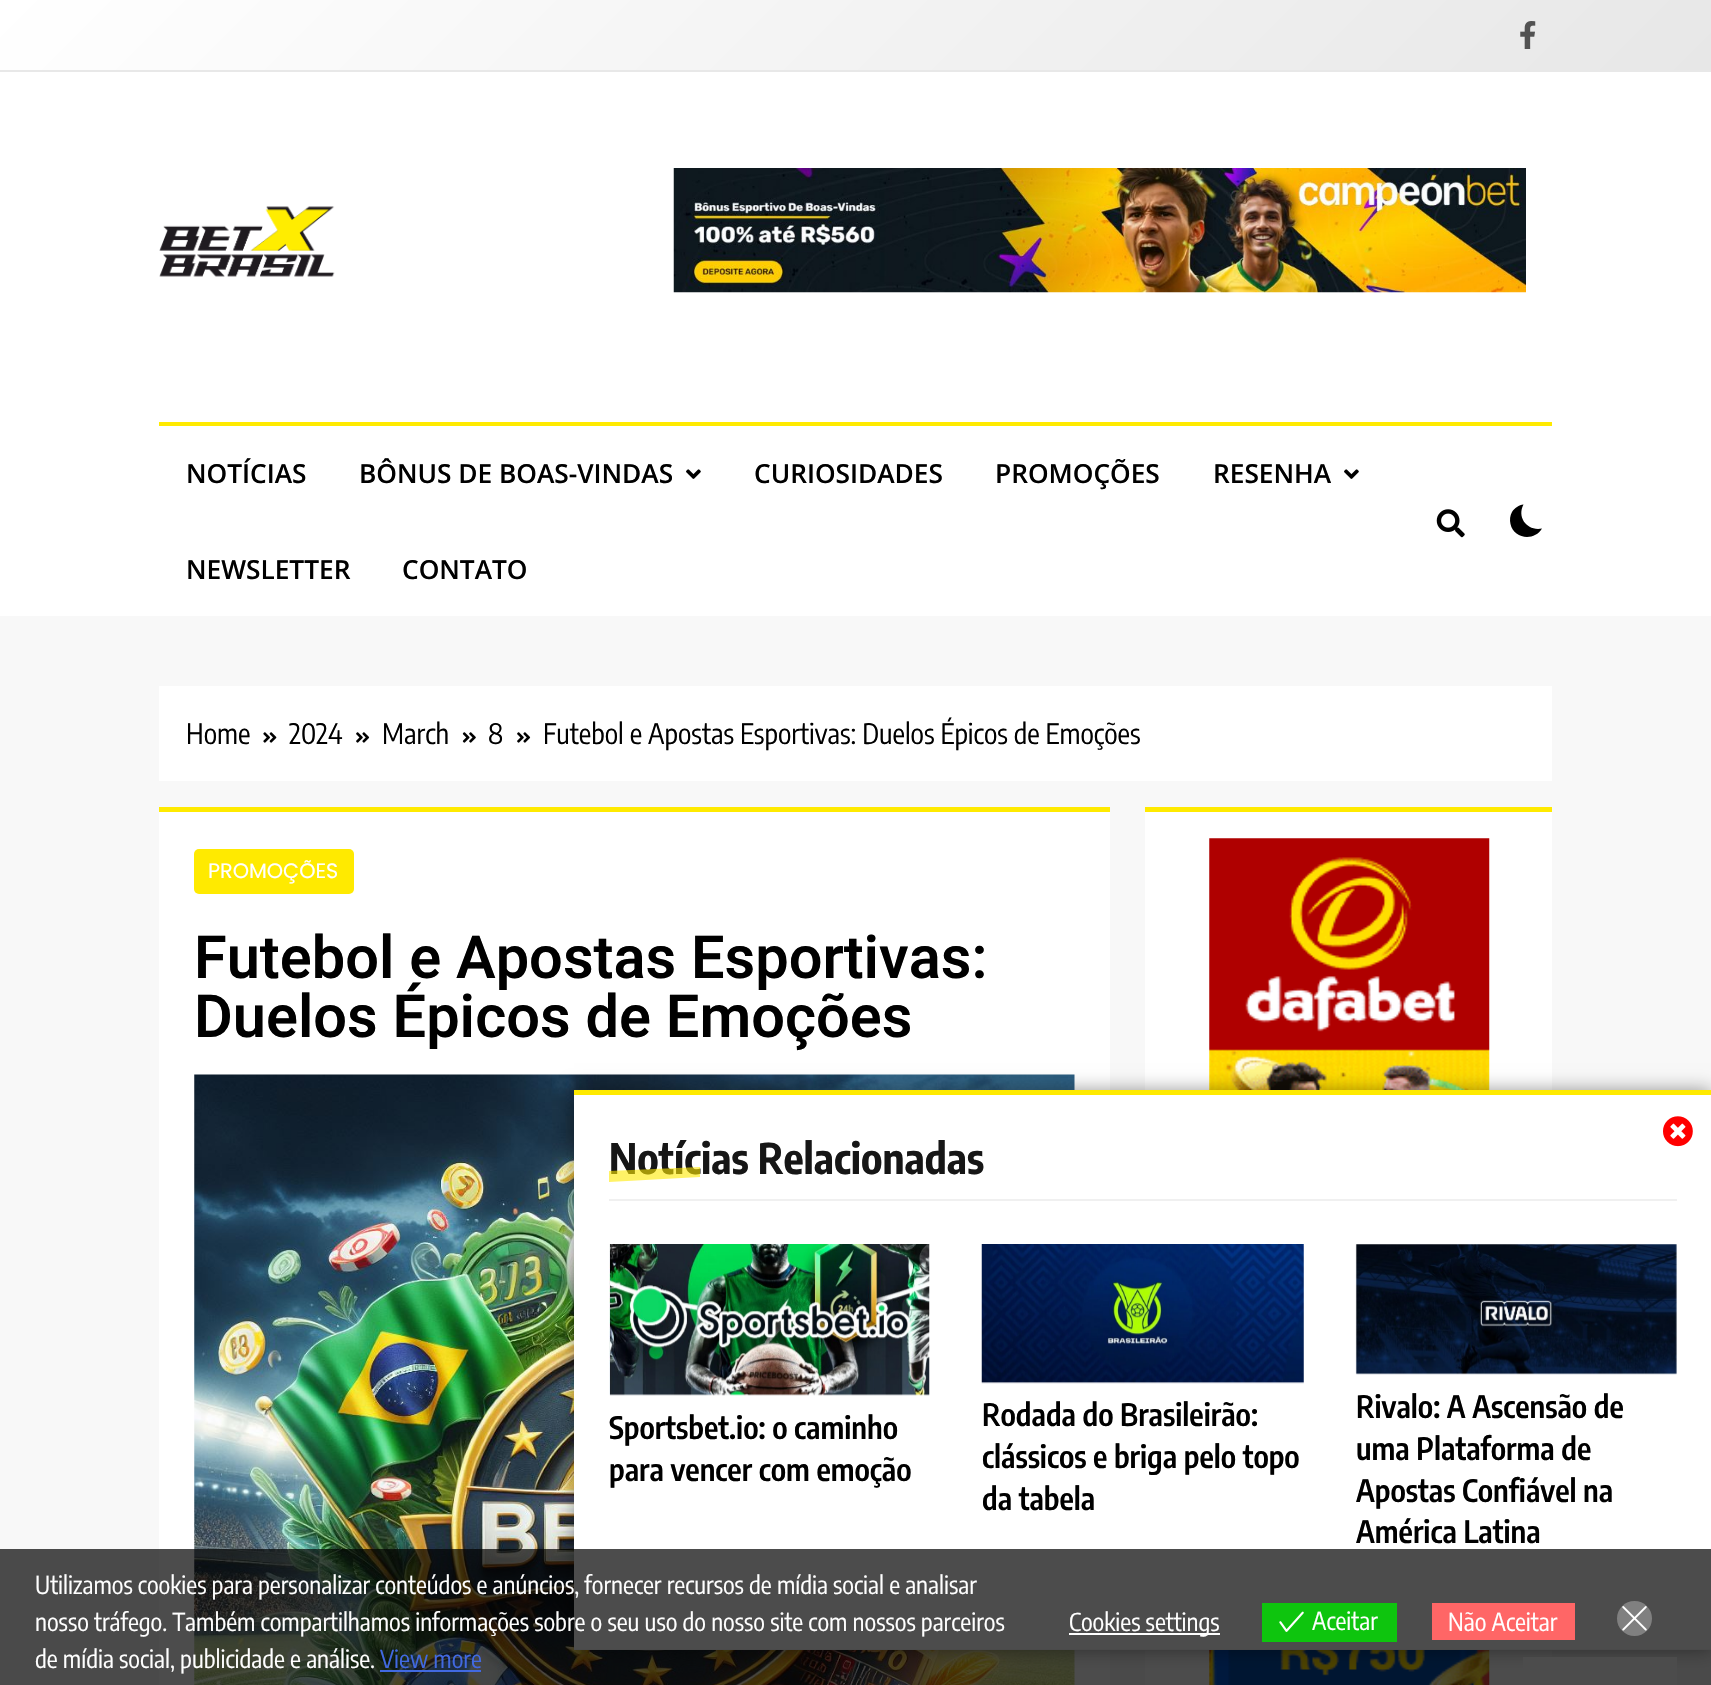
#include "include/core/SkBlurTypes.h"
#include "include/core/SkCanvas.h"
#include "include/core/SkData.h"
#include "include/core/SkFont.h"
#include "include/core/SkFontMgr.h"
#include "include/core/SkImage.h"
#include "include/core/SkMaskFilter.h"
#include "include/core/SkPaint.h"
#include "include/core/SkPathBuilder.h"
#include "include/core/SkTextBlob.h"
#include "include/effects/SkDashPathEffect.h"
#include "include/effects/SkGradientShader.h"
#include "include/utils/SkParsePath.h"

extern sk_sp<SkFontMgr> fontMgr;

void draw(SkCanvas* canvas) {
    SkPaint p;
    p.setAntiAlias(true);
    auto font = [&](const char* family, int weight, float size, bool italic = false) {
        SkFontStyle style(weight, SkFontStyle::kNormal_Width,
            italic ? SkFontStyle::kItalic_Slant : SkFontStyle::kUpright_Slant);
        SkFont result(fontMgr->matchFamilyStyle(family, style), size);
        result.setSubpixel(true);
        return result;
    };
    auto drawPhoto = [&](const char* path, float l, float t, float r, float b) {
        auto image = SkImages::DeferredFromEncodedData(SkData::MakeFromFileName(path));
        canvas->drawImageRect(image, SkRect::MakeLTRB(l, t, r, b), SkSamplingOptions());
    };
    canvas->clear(0xFFF8F8F8);
    {
        const SkColor colors[] = {0xFFFFFFFF, 0xFFE7E7E7};
        const float stops[] = {0, 1};
        const SkPoint ends[] = {{410, -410}, {1301, 480}};
        p.setShader(SkGradientShader::MakeLinear(ends, colors, stops, 2, SkTileMode::kClamp));
        p.setAlpha(255);
    }
    canvas->drawRect(SkRect::MakeLTRB(0, 0, 1711, 70), p);
    p.setShader(nullptr);
    p.setColor(0xFFE8E8E8);
    canvas->drawRect(SkRect::MakeLTRB(0, 70, 1711, 72), p);
    drawPhoto("media/1.png", 1520, 21, 1536, 49);
    p.setColor(0xFFFFFFFF);
    canvas->drawRect(SkRect::MakeLTRB(0, 72, 1711, 616), p);
    drawPhoto("media/2.png", 159, 206, 335, 277);
    drawPhoto("media/3.png", 673, 168, 1526, 293);
    p.setColor(0xFFFFEA00);
    canvas->drawRect(SkRect::MakeLTRB(159, 422, 1552, 426), p);
    auto font1 = font("Open Sans", 600, 26.25f);
    p.setColor(0xFF000000);
    canvas->drawString("NOTÍCIAS", 186, 483, font1, p);
    canvas->drawString("BÔNUS DE BOAS-VINDAS", 359, 483, font1, p);
    drawPhoto("media/4.png", 686, 469, 701, 479);
    {
        const struct { const char* s; float x, y; } items[] = {
            {"CURIOSIDADES", 754, 483},
            {"PROMOÇÕES", 995, 483},
            {"RESENHA", 1213, 483},
        };
        for (auto [s, x, y] : items) {
            canvas->drawString(s, x, y, font1, p);
        }
    }
    drawPhoto("media/4.png", 1344, 469, 1359, 479);
    canvas->drawString("NEWSLETTER", 186, 579, font1, p);
    canvas->drawString("CONTATO", 402, 579, font1, p);
    drawPhoto("media/5.png", 1436, 509, 1465, 538);
    canvas->drawPath(SkPathBuilder().moveTo(1542, 528.5f).cubicTo(1527.5f, 531.5f, 1516.5f, 517.5f, 1523.5f, 504.5f).cubicTo(1519, 505, 1514.5f, 508, 1512, 512).cubicTo(1510, 515.5f, 1509.5f, 520, 1510.5f, 524).cubicTo(1513.5f, 539, 1534.5f, 541.5f, 1542, 528.5f).close().detach(), p);
    p.setColor(0xFFFFFFFF);
    canvas->drawRect(SkRect::MakeLTRB(159, 686, 1552, 781), p);
    auto font2 = font("Encode Sans Condensed", 400, 28);
    p.setColor(0xFF000000);
    canvas->drawString("Home", 186, 744, font2, p);
    drawPhoto("media/6.png", 263, 732, 277, 743);
    canvas->drawString("2024", 289, 744, font2, p);
    drawPhoto("media/7.png", 356, 732, 370, 743);
    canvas->drawString("March", 382, 744, font2, p);
    drawPhoto("media/8.png", 462, 732, 476, 743);
    canvas->drawString("8", 488, 744, font2, p);
    drawPhoto("media/7.png", 517, 732, 531, 743);
    canvas->drawString("Futebol e Apostas Esportivas: Duelos Épicos de Emoções", 543, 744, font2, p);
    p.setColor(0xFFFFFFFF);
    canvas->drawRect(SkRect::MakeLTRB(1145, 812, 1552, 1685), p);
    p.setColor(0xFFFFEA00);
    canvas->drawRect(SkRect::MakeLTRB(1145, 807, 1552, 812), p);
    drawPhoto("media/9.png", 1209, 838, 1490, 1685);
    p.setColor(0xFFFFFFFF);
    canvas->drawRect(SkRect::MakeLTRB(159, 812, 1110, 1685), p);
    p.setColor(0xFFFFEA00);
    canvas->drawRect(SkRect::MakeLTRB(159, 807, 1110, 812), p);
    canvas->drawRoundRect(SkRect::MakeLTRB(194, 849, 354, 894), 5, 5, p);
    auto font3 = font("Poppins", 400, 20.75f);
    p.setColor(0xFFFFFFFF);
    canvas->drawString("PROMOÇÕES", 208, 878, font3, p);
    auto font4 = font("Heebo", 600, 59.5f);
    p.setColor(0xFF000000);
    canvas->drawString("Futebol e Apostas Esportivas:", 194, 978, font4, p);
    canvas->drawString("Duelos Épicos de Emoções", 194, 1037, font4, p);
    drawPhoto("media/10.png", 194, 1074, 1075, 1685);
    p.setColor(0x66000000);
    p.setMaskFilter(SkMaskFilter::MakeBlur(kNormal_SkBlurStyle, 9));
    canvas->drawRect(SkRect::MakeLTRB(574, 1090, 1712, 1650), p);
    p.setMaskFilter(nullptr);
    {
        const struct { float l, t, r, b; SkColor color; } items[] = {
            {574, 1649, 1711, 1650, 0xFFF9F9F9},
            {574, 1095, 1711, 1649, 0xFFFFFFFF},
            {574, 1090, 1711, 1095, 0xFFFFEA00},
        };
        for (auto [l, t, r, b, color] : items) {
            p.setColor(color);
            canvas->drawRect(SkRect::MakeLTRB(l, t, r, b), p);
        }
    }
    drawPhoto("media/11.png", 1663, 1116, 1693, 1147);
    p.setColor(0xFFF0F0F0);
    canvas->drawRect(SkRect::MakeLTRB(609, 1199, 1677, 1201), p);
    auto font5 = font("Encode Sans Condensed", 700, 42);
    p.setColor(0xFF161616);
    canvas->drawString("Notícias Relacionadas", 609, 1174, font5, p);
    p.setColor(0x99FFEA00);
    canvas->drawPath(SkPathBuilder().moveTo(609, 1171).lineTo(700, 1167).lineTo(700, 1177).lineTo(609, 1182).close().detach(), p);
    drawPhoto("media/12.png", 609, 1244, 930, 1396);
    auto font6 = font("Encode Sans Condensed", 600, 30.75f);
    p.setColor(0xFF000000);
    canvas->drawString("Sportsbet.io: o caminho", 609, 1439, font6, p);
    canvas->drawString("para vencer com emoção", 609, 1481, font6, p);
    drawPhoto("media/13.png", 981, 1244, 1304, 1384);
    {
        const struct { const char* s; float x, y; } items[] = {
            {"Rodada do Brasileirão:", 982, 1426},
            {"clássicos e briga pelo topo", 982, 1468},
            {"da tabela", 982, 1510},
        };
        for (auto [s, x, y] : items) {
            canvas->drawString(s, x, y, font6, p);
        }
    }
    drawPhoto("media/14.png", 1355, 1244, 1677, 1375);
    {
        const struct { const char* s; float x, y; } items[] = {
            {"Rivalo: A Ascensão de", 1356, 1418},
            {"uma Plataforma de", 1356, 1460},
            {"Apostas Confiável na", 1356, 1502},
            {"América Latina", 1356, 1543},
        };
        for (auto [s, x, y] : items) {
            canvas->drawString(s, x, y, font6, p);
        }
    }
    p.setColor(0xFFFFFFFF);
    canvas->drawRect(SkRect::MakeLTRB(1523, 1657, 1677, 1685), p);
    p.setColor(0xB3000000);
    canvas->drawRect(SkRect::MakeLTRB(0, 1549, 1711, 1685), p);
    auto font7 = font("Encode Sans Condensed", 400, 24.5f);
    p.setColor(0xFFFFFFFF);
    {
        const struct { const char* s; float x, y; } items[] = {
            {"Utilizamos cookies para personalizar conteúdos e anúncios, fornecer recursos de mídia social e analisar", 35, 1594},
            {"nosso tráfego. Também compartilhamos informações sobre o seu uso do nosso site com nossos parceiros", 35, 1631},
            {"de mídia social, publicidade e análise.", 35, 1668},
        };
        for (auto [s, x, y] : items) {
            canvas->drawString(s, x, y, font7, p);
        }
    }
    p.setColor(0xFF4169E1);
    canvas->drawString("View more", 380, 1668, font7, p);
    canvas->drawRect(SkRect::MakeLTRB(380, 1670, 481, 1672), p);
    p.setColor(0xFFFFFFFF);
    canvas->drawRect(SkRect::MakeLTRB(1069, 1633, 1220, 1635), p);
    canvas->drawString("Cookies settings", 1069, 1631, font7, p);
    p.setColor(0xFF0EC50E);
    canvas->drawRect(SkRect::MakeLTRB(1262, 1603, 1397, 1642), p);
    drawPhoto("media/15.png", 1279, 1611, 1304, 1632);
    p.setColor(0xFFFFFFFF);
    canvas->drawString("Aceitar", 1312, 1630, font7, p);
    p.setColor(0xFFFF6666);
    canvas->drawRect(SkRect::MakeLTRB(1432, 1603, 1575, 1640), p);
    p.setColor(0xFFFFFFFF);
    canvas->drawString("Não Aceitar", 1448, 1631, font7, p);
    p.setColor(0xFF808080);
    canvas->drawCircle(1634.5f, 1618.5f, 17.5f, p);
    drawPhoto("media/16.png", 1622, 1606, 1647, 1631);
}
